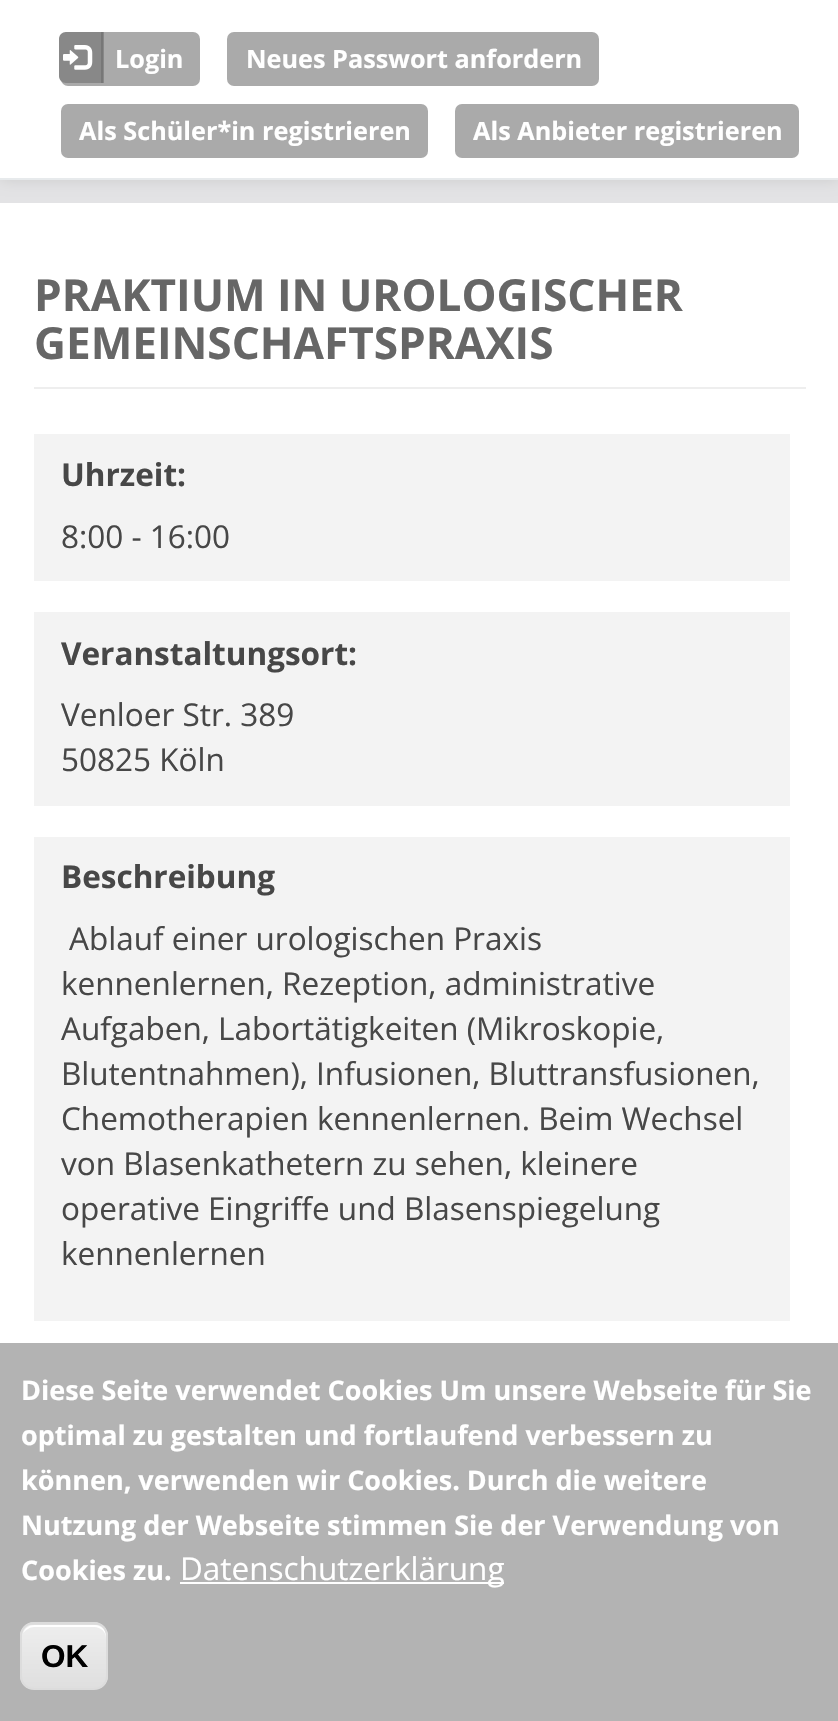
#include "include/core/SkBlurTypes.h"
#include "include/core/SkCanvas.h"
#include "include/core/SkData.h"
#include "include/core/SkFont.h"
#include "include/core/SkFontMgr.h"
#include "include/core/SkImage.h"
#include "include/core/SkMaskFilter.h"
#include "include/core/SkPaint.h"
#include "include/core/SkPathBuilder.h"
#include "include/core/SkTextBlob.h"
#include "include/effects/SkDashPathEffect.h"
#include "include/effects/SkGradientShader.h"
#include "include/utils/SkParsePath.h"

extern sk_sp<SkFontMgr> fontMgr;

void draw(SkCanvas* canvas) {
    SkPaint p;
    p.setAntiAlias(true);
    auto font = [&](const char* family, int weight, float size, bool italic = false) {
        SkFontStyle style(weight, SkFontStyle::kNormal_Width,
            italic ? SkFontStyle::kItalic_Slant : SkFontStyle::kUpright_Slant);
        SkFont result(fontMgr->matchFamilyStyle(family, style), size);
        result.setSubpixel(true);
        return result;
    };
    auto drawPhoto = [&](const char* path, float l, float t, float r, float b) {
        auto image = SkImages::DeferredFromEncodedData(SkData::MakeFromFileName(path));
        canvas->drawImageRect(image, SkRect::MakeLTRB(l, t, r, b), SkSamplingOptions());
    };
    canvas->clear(0xFFFFFFFF);
    p.setColor(0xFFE3E3E5);
    canvas->drawRect(SkRect::MakeLTRB(0, 180, 838, 203), p);
    p.setColor(0xFFCCCCCC);
    p.setMaskFilter(SkMaskFilter::MakeBlur(kNormal_SkBlurStyle, 7));
    canvas->drawRect(SkRect::MakeLTRB(0, 0, 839, 180), p);
    p.setMaskFilter(nullptr);
    p.setColor(0xFFFFFFFF);
    canvas->drawRect(SkRect::MakeLTRB(0, 0, 838, 178), p);
    p.setColor(0xFFE7EAEC);
    canvas->drawRect(SkRect::MakeLTRB(0, 178, 838, 180), p);
    p.setColor(0xFFAAAAAA);
    canvas->drawRoundRect(SkRect::MakeLTRB(61, 32, 200, 86), 7, 7, p);
    p.setColor(0xFF888888);
    canvas->drawPath(SkPathBuilder().moveTo(66, 32).lineTo(104, 32).lineTo(104, 83).lineTo(66, 83).cubicTo(62, 83, 59, 80, 59, 76).lineTo(59, 39).cubicTo(59, 35, 62, 32, 66, 32).close().detach(), p);
    p.setColor(0xFF777777);
    canvas->drawRect(SkRect::MakeLTRB(101, 32, 103, 83), p);
    drawPhoto("media/1.png", 63, 45, 93, 70);
    auto font1 = font("Open Sans", 700, 25.25f);
    p.setColor(0xFFFFFFFF);
    canvas->drawString("Login", 115, 68, font1, p);
    p.setColor(0xFFAAAAAA);
    canvas->drawRoundRect(SkRect::MakeLTRB(227, 32, 599, 86), 7, 7, p);
    p.setColor(0xFFFFFFFF);
    canvas->drawString("Neues Passwort anfordern", 246, 68, font1, p);
    p.setColor(0xFFAAAAAA);
    canvas->drawRoundRect(SkRect::MakeLTRB(61, 104, 428, 158), 7, 7, p);
    p.setColor(0xFFFFFFFF);
    canvas->drawString("Als Schüler*in registrieren", 79, 140, font1, p);
    p.setColor(0xFFAAAAAA);
    canvas->drawRoundRect(SkRect::MakeLTRB(455, 104, 799, 158), 7, 7, p);
    p.setColor(0xFFFFFFFF);
    canvas->drawString("Als Anbieter registrieren", 473, 140, font1, p);
    p.setColor(0xFFEEEEEE);
    canvas->drawRect(SkRect::MakeLTRB(34, 387, 806, 389), p);
    auto font2 = font("Open Sans", 700, 44.1f);
    p.setColor(0xFF666666);
    canvas->drawString("PRAKTIUM IN UROLOGISCHER", 34, 311, font2, p);
    canvas->drawString("GEMEINSCHAFTSPRAXIS", 34, 359, font2, p);
    p.setColor(0xFFF3F3F3);
    canvas->drawRect(SkRect::MakeLTRB(34, 434, 790, 581), p);
    auto font3 = font("Open Sans", 700, 31.5f);
    p.setColor(0xFF474747);
    canvas->drawString("Uhrzeit:", 61, 486, font3, p);
    auto font4 = font("Open Sans", 400, 31.5f);
    canvas->drawString("8:00 - 16:00", 61, 548, font4, p);
    p.setColor(0xFFF3F3F3);
    canvas->drawRect(SkRect::MakeLTRB(34, 612, 790, 806), p);
    p.setColor(0xFF474747);
    canvas->drawString("Veranstaltungsort:", 61, 665, font3, p);
    canvas->drawString("Venloer Str. 389", 61, 726, font4, p);
    canvas->drawString("50825 Köln", 61, 771, font4, p);
    p.setColor(0xFFF3F3F3);
    canvas->drawRect(SkRect::MakeLTRB(34, 837, 790, 1321), p);
    p.setColor(0xFF474747);
    canvas->drawString("Beschreibung", 61, 888, font3, p);
    {
        const struct { const char* s; float x, y; } items[] = {
            {"Ablauf einer urologischen Praxis", 69, 950},
            {"kennenlernen, Rezeption, administrative", 61, 995},
            {"Aufgaben, Labortätigkeiten (Mikroskopie,", 61, 1040},
            {"Blutentnahmen), Infusionen, Bluttransfusionen,", 61, 1085},
            {"Chemotherapien kennenlernen. Beim Wechsel", 61, 1130},
            {"von Blasenkathetern zu sehen, kleinere", 61, 1175},
            {"operative Eingriffe und Blasenspiegelung", 61, 1220},
            {"kennenlernen", 61, 1265},
        };
        for (auto [s, x, y] : items) {
            canvas->drawString(s, x, y, font4, p);
        }
    }
    p.setColor(0xFFB3B3B3);
    canvas->drawRect(SkRect::MakeLTRB(0, 1343, 838, 1721), p);
    auto font5 = font("Open Sans", 700, 27);
    p.setColor(0xFFFFFFFF);
    {
        const struct { const char* s; float x, y; } items[] = {
            {"Diese Seite verwendet Cookies Um unsere Webseite für Sie", 21, 1400},
            {"optimal zu gestalten und fortlaufend verbessern zu", 21, 1445},
            {"können, verwenden wir Cookies. Durch die weitere", 21, 1490},
            {"Nutzung der Webseite stimmen Sie der Verwendung von", 21, 1535},
            {"Cookies zu.", 21, 1580},
        };
        for (auto [s, x, y] : items) {
            canvas->drawString(s, x, y, font5, p);
        }
    }
    canvas->drawRect(SkRect::MakeLTRB(180, 1582, 504, 1584), p);
    canvas->drawString("Datenschutzerklärung", 180, 1580, font4, p);
    canvas->save();
    canvas->clipPath(SkPathBuilder().moveTo(34, 1622).lineTo(94, 1622).cubicTo(101.5f, 1622, 108, 1628.5f, 108, 1636).lineTo(108, 1676).cubicTo(108, 1683.5f, 101.5f, 1690, 94, 1690).lineTo(34, 1690).cubicTo(26.5f, 1690, 20, 1683.5f, 20, 1676).lineTo(20, 1636).cubicTo(20, 1628.5f, 26.5f, 1622, 34, 1622).close().detach(), true);
    {
        const SkColor colors[] = {0xFFEDEDED, 0xFFDFDFDF};
        const float stops[] = {0.05f, 1};
        const SkPoint ends[] = {{64, 1562}, {64, 1625}};
        p.setShader(SkGradientShader::MakeLinear(ends, colors, stops, 2, SkTileMode::kClamp));
        p.setAlpha(255);
    }
    canvas->drawRect(SkRect::MakeLTRB(20, 1622, 108, 1625), p);
    {
        const SkColor colors[] = {0xFFEDEDED, 0xFFDFDFDF};
        const float stops[] = {0.05f, 1};
        const SkPoint ends[] = {{64, 1625}, {64, 1688}};
        p.setShader(SkGradientShader::MakeLinear(ends, colors, stops, 2, SkTileMode::kClamp));
        p.setAlpha(255);
    }
    canvas->drawRect(SkRect::MakeLTRB(20, 1625, 108, 1688), p);
    canvas->restore();
    p.setShader(nullptr);
    p.setColor(0xFFFFFFFF);
    canvas->drawPath(SkPathBuilder().moveTo(34, 1627).lineTo(94, 1627).cubicTo(101, 1627, 106, 1632, 106, 1638).lineTo(106, 1636).cubicTo(106, 1630, 101, 1625, 95, 1625).lineTo(34, 1625).cubicTo(29, 1625, 25, 1628, 23, 1633).cubicTo(26, 1630, 30, 1627, 34, 1627).close().detach(), p);
    p.setStyle(SkPaint::kStroke_Style);
    p.setStrokeWidth(2);
    p.setColor(0xFFDCDCDC);
    canvas->drawRoundRect(SkRect::MakeLTRB(21, 1623, 107, 1689), 13, 13, p);
    auto font6 = font("Liberation Sans", 700, 31.5f);
    p.setStyle(SkPaint::kFill_Style);
    p.setColor(0xFF000000);
    canvas->drawString("OK", 41, 1667, font6, p);
}
